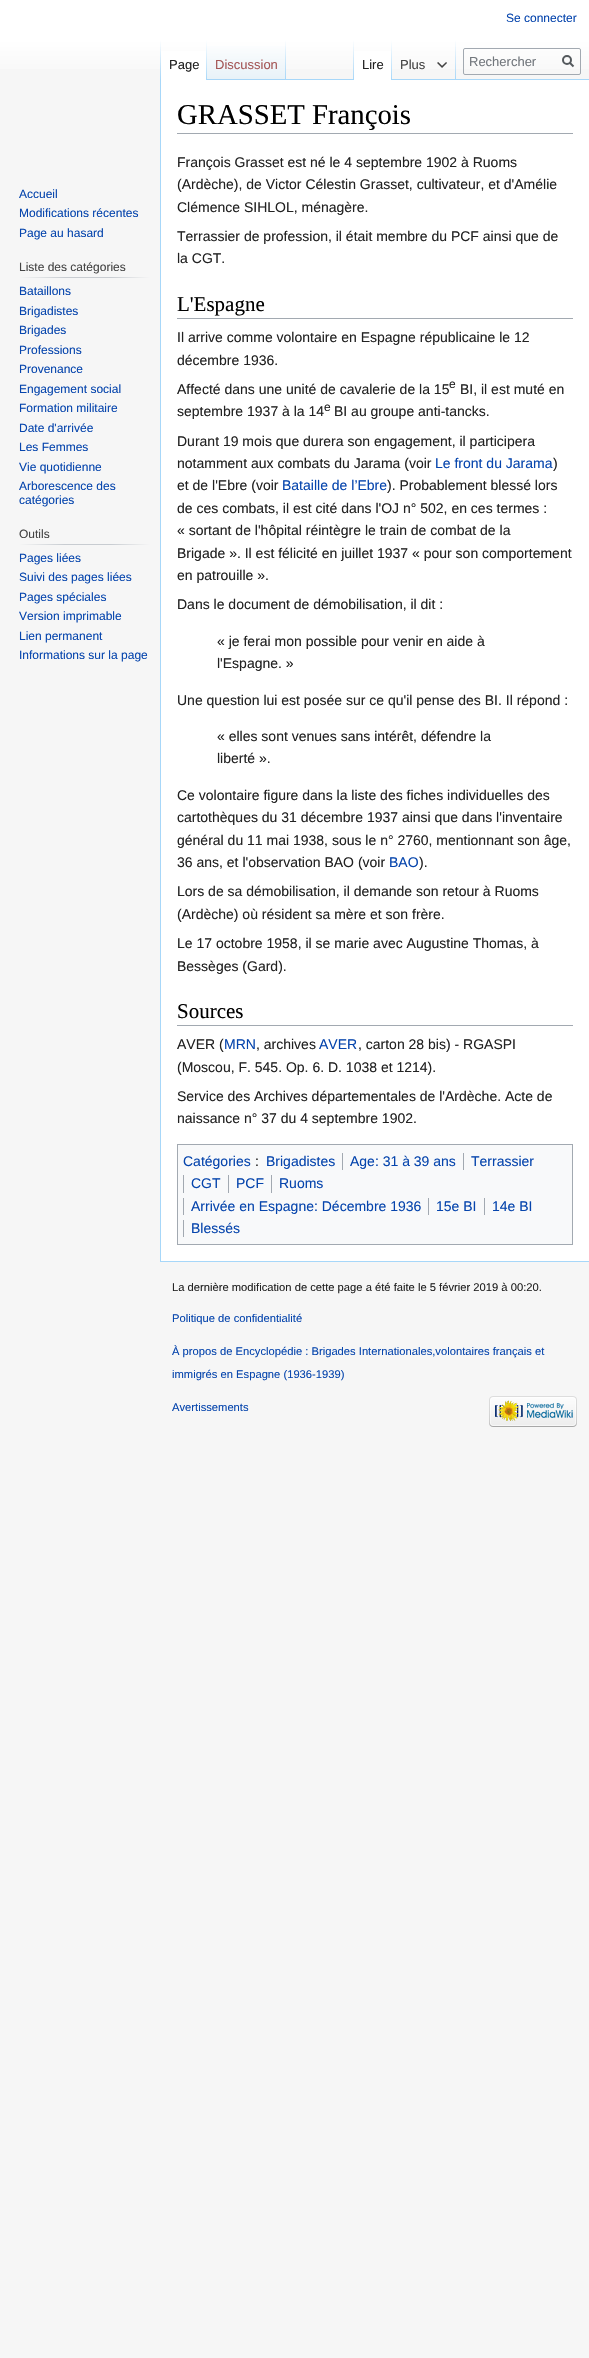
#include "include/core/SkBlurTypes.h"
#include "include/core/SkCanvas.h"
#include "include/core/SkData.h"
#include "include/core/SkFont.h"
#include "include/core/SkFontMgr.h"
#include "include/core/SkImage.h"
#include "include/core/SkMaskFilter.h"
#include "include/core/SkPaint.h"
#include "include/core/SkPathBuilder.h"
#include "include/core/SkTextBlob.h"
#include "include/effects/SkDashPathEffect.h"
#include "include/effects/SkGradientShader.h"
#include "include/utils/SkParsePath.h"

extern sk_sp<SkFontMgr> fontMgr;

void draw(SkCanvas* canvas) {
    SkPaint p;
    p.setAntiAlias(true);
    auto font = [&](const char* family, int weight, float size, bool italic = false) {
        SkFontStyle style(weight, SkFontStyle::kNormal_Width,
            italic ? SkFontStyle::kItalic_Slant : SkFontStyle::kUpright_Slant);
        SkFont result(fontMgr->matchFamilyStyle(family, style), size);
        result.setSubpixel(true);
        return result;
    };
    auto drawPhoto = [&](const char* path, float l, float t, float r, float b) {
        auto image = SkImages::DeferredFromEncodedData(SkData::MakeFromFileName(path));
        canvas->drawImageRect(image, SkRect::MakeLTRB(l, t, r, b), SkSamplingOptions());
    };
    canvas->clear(0xFFF6F6F6);
    {
        const SkColor colors[] = {0xFFFFFFFF, 0xFFF6F6F6};
        const float stops[] = {0.5f, 1};
        const SkPoint ends[] = {{295, 0}, {295, 80}};
        p.setShader(SkGradientShader::MakeLinear(ends, colors, stops, 2, SkTileMode::kClamp));
        p.setAlpha(255);
    }
    canvas->drawRect(SkRect::MakeLTRB(0, 0, 589, 69), p);
    auto font1 = font("Liberation Sans", 400, 12);
    p.setShader(nullptr);
    p.setColor(0xFF0645AD);
    canvas->drawString("Se connecter", 506, 22, font1, p);
    p.setColor(0xFFA7D7F9);
    canvas->drawRect(SkRect::MakeLTRB(160, 1261, 589, 1262), p);
    canvas->drawRect(SkRect::MakeLTRB(160, 79, 161, 1262), p);
    {
        const SkColor colors[] = {0x00A7D7F9, 0xFFA7D7F9};
        const float stops[] = {0, 1};
        const SkPoint ends[] = {{161, 40}, {161, 80}};
        p.setShader(SkGradientShader::MakeLinear(ends, colors, stops, 2, SkTileMode::kClamp));
        p.setAlpha(255);
    }
    canvas->drawRect(SkRect::MakeLTRB(160, 40, 161, 80), p);
    p.setShader(nullptr);
    p.setColor(0xFFFFFFFF);
    canvas->drawRect(SkRect::MakeLTRB(161, 51, 206, 80), p);
    {
        const SkColor colors[] = {0xFFFFFFFF, 0xFFA7D7F9};
        const float stops[] = {0, 1};
        const SkPoint ends[] = {{207, 40}, {207, 80}};
        p.setShader(SkGradientShader::MakeLinear(ends, colors, stops, 2, SkTileMode::kClamp));
        p.setAlpha(255);
    }
    canvas->drawRect(SkRect::MakeLTRB(206, 40, 207, 80), p);
    auto font2 = font("Liberation Sans", 400, 13);
    p.setShader(nullptr);
    p.setColor(0xFF222222);
    canvas->drawString("Page", 169, 69, font2, p);
    {
        const SkColor colors[] = {0xFF77C1F6, 0xFFE8F2F8, 0xFFFFFFFF};
        const float stops[] = {0, 0.03f, 1};
        const SkPoint ends[] = {{247, 80}, {247, 40}};
        p.setShader(SkGradientShader::MakeLinear(ends, colors, stops, 3, SkTileMode::kClamp));
        p.setAlpha(255);
    }
    canvas->drawRect(SkRect::MakeLTRB(207, 46, 286, 80), p);
    {
        const SkColor colors[] = {0x00A7D7F9, 0xFFA7D7F9};
        const float stops[] = {0, 1};
        const SkPoint ends[] = {{286, 40}, {286, 80}};
        p.setShader(SkGradientShader::MakeLinear(ends, colors, stops, 2, SkTileMode::kClamp));
        p.setAlpha(255);
    }
    canvas->drawRect(SkRect::MakeLTRB(285, 40, 286, 80), p);
    p.setShader(nullptr);
    p.setColor(0xFFA55858);
    canvas->drawString("Discussion", 215, 69, font2, p);
    p.setColor(0xFFA7D7F9);
    canvas->drawRect(SkRect::MakeLTRB(286, 79, 589, 80), p);
    {
        const SkColor colors[] = {0x00A7D7F9, 0xFFA7D7F9};
        const float stops[] = {0, 1};
        const SkPoint ends[] = {{354, 40}, {354, 80}};
        p.setShader(SkGradientShader::MakeLinear(ends, colors, stops, 2, SkTileMode::kClamp));
        p.setAlpha(255);
    }
    canvas->drawRect(SkRect::MakeLTRB(353, 40, 354, 80), p);
    p.setShader(nullptr);
    p.setColor(0xFFFFFFFF);
    canvas->drawRect(SkRect::MakeLTRB(354, 51, 391, 80), p);
    {
        const SkColor colors[] = {0xFFFFFFFF, 0xFFA7D7F9};
        const float stops[] = {0, 1};
        const SkPoint ends[] = {{392, 40}, {392, 80}};
        p.setShader(SkGradientShader::MakeLinear(ends, colors, stops, 2, SkTileMode::kClamp));
        p.setAlpha(255);
    }
    canvas->drawRect(SkRect::MakeLTRB(391, 40, 392, 80), p);
    p.setShader(nullptr);
    p.setColor(0xFF222222);
    canvas->drawString("Lire", 362, 69, font2, p);
    {
        const SkColor colors[] = {0x00A7D7F9, 0xFFA7D7F9};
        const float stops[] = {0, 1};
        const SkPoint ends[] = {{456, 40}, {456, 80}};
        p.setShader(SkGradientShader::MakeLinear(ends, colors, stops, 2, SkTileMode::kClamp));
        p.setAlpha(255);
    }
    canvas->drawRect(SkRect::MakeLTRB(455, 40, 456, 80), p);
    p.setShader(nullptr);
    p.setColor(0xFF444444);
    canvas->drawString("Plus", 400, 69, font2, p);
    drawPhoto("media/1.png", 437, 62, 447, 68);
    p.setStyle(SkPaint::kStroke_Style);
    p.setStrokeWidth(1);
    p.setColor(0xFFA2A9B1);
    canvas->drawRoundRect(SkRect::MakeLTRB(463.5f, 48.5f, 580.5f, 74.5f), 1.5f, 1.5f, p);
    p.setStyle(SkPaint::kFill_Style);
    p.setColor(0xFF72777D);
    canvas->drawString("Rechercher", 469, 66, font2, p);
    p.setStyle(SkPaint::kStroke_Style);
    p.setStrokeWidth(2);
    p.setColor(0xFF54595D);
    canvas->drawPath(SkPathBuilder().moveTo(573.5f, 66.5f).lineTo(569.5f, 62.5f).detach(), p);
    canvas->drawCircle(567, 60, 4, p);
    p.setStyle(SkPaint::kFill_Style);
    p.setColor(0xFF0645AD);
    {
        const struct { const char* s; float x, y; } items[] = {
            {"Accueil", 19, 198},
            {"Modifications récentes", 19, 217},
            {"Page au hasard", 19, 237},
        };
        for (auto [s, x, y] : items) {
            canvas->drawString(s, x, y, font1, p);
        }
    }
    p.setColor(0xFF444444);
    canvas->drawString("Liste des catégories", 19, 271, font1, p);
    {
        const SkColor colors[] = {0xFFF6F6F6, 0xFFC8CCD1, 0xFFC8CCD1, 0xFFF6F6F6};
        const float stops[] = {0, 0.35f, 0.7f, 1};
        const SkPoint ends[] = {{19, 278}, {150, 278}};
        p.setShader(SkGradientShader::MakeLinear(ends, colors, stops, 4, SkTileMode::kClamp));
        p.setAlpha(255);
    }
    canvas->drawRect(SkRect::MakeLTRB(19, 277, 150, 278), p);
    p.setShader(nullptr);
    p.setColor(0xFF0645AD);
    {
        const struct { const char* s; float x, y; } items[] = {
            {"Bataillons", 19, 295},
            {"Brigadistes", 19, 315},
            {"Brigades", 19, 334},
            {"Professions", 19, 354},
            {"Provenance", 19, 373},
            {"Engagement social", 19, 393},
            {"Formation militaire", 19, 412},
            {"Date d'arrivée", 19, 432},
            {"Les Femmes", 19, 451},
            {"Vie quotidienne", 19, 471},
            {"Arborescence des", 19, 490},
            {"catégories", 19, 504},
        };
        for (auto [s, x, y] : items) {
            canvas->drawString(s, x, y, font1, p);
        }
    }
    p.setColor(0xFF444444);
    canvas->drawString("Outils", 19, 538, font1, p);
    {
        const SkColor colors[] = {0xFFF6F6F6, 0xFFC8CCD1, 0xFFC8CCD1, 0xFFF6F6F6};
        const float stops[] = {0, 0.35f, 0.7f, 1};
        const SkPoint ends[] = {{19, 545}, {150, 545}};
        p.setShader(SkGradientShader::MakeLinear(ends, colors, stops, 4, SkTileMode::kClamp));
        p.setAlpha(255);
    }
    canvas->drawRect(SkRect::MakeLTRB(19, 544, 150, 545), p);
    p.setShader(nullptr);
    p.setColor(0xFF0645AD);
    {
        const struct { const char* s; float x, y; } items[] = {
            {"Pages liées", 19, 562},
            {"Suivi des pages liées", 19, 581},
            {"Pages spéciales", 19, 601},
            {"Version imprimable", 19, 620},
            {"Lien permanent", 19, 640},
            {"Informations sur la page", 19, 659},
        };
        for (auto [s, x, y] : items) {
            canvas->drawString(s, x, y, font1, p);
        }
    }
    p.setColor(0xFFFFFFFF);
    canvas->drawRect(SkRect::MakeLTRB(161, 80, 589, 1261), p);
    p.setColor(0xFFA2A9B1);
    canvas->drawRect(SkRect::MakeLTRB(177, 133, 573, 134), p);
    auto font3 = font("Liberation Serif", 400, 28.75f);
    p.setColor(0xFF000000);
    canvas->drawString("GRASSET François", 177, 124, font3, p);
    auto font4 = font("Liberation Sans", 400, 14);
    p.setColor(0xFF222222);
    {
        const struct { const char* s; float x, y; } items[] = {
            {"François Grasset est né le 4 septembre 1902 à Ruoms", 177, 167},
            {"(Ardèche), de Victor Célestin Grasset, cultivateur, et d'Amélie", 177, 189},
            {"Clémence SIHLOL, ménagère.", 177, 212},
            {"Terrassier de profession, il était membre du PCF ainsi que de", 177, 241},
            {"la CGT.", 177, 263},
        };
        for (auto [s, x, y] : items) {
            canvas->drawString(s, x, y, font4, p);
        }
    }
    p.setColor(0xFFA2A9B1);
    canvas->drawRect(SkRect::MakeLTRB(177, 318, 573, 319), p);
    auto font5 = font("Liberation Serif", 400, 21);
    p.setColor(0xFF000000);
    canvas->drawString("L'Espagne", 177, 311, font5, p);
    p.setColor(0xFF222222);
    {
        const struct { const char* s; float x, y; } items[] = {
            {"Il arrive comme volontaire en Espagne républicaine le 12", 177, 342},
            {"décembre 1936.", 177, 365},
            {"Affecté dans une unité de cavalerie de la 15", 177, 394},
        };
        for (auto [s, x, y] : items) {
            canvas->drawString(s, x, y, font4, p);
        }
    }
    canvas->drawString("e", 449, 388, font1, p);
    canvas->drawString("BI, il est muté en", 460, 394, font4, p);
    canvas->drawString("septembre 1937 à la 14", 177, 416, font4, p);
    canvas->drawString("e", 324, 411, font1, p);
    {
        const struct { const char* s; float x, y; } items[] = {
            {"BI au groupe anti-tancks.", 334, 416},
            {"Durant 19 mois que durera son engagement, il participera", 177, 446},
            {"notamment aux combats du Jarama (voir", 177, 468},
        };
        for (auto [s, x, y] : items) {
            canvas->drawString(s, x, y, font4, p);
        }
    }
    p.setColor(0xFF0645AD);
    canvas->drawString("Le front du Jarama", 435, 468, font4, p);
    p.setColor(0xFF222222);
    canvas->drawString(")", 553, 468, font4, p);
    canvas->drawString("et de l'Ebre (voir", 177, 490, font4, p);
    p.setColor(0xFF0645AD);
    canvas->drawString("Bataille de l’Ebre", 282, 490, font4, p);
    p.setColor(0xFF222222);
    {
        const struct { const char* s; float x, y; } items[] = {
            {"). Probablement blessé lors", 387, 490},
            {"de ces combats, il est cité dans l'OJ n° 502, en ces termes :", 177, 513},
            {"« sortant de l'hôpital réintègre le train de combat de la", 177, 535},
            {"Brigade ». Il est félicité en juillet 1937 « pour son comportement", 177, 558},
            {"en patrouille ».", 177, 580},
            {"Dans le document de démobilisation, il dit :", 177, 609},
            {"« je ferai mon possible pour venir en aide à", 217, 646},
            {"l'Espagne. »", 217, 668},
            {"Une question lui est posée sur ce qu'il pense des BI. Il répond :", 177, 705},
            {"« elles sont venues sans intérêt, défendre la", 217, 741},
            {"liberté ».", 217, 763},
            {"Ce volontaire figure dans la liste des fiches individuelles des", 177, 800},
            {"cartothèques du 31 décembre 1937 ainsi que dans l'inventaire", 177, 822},
            {"général du 11 mai 1938, sous le n° 2760, mentionnant son âge,", 177, 845},
            {"36 ans, et l'observation BAO (voir", 177, 867},
        };
        for (auto [s, x, y] : items) {
            canvas->drawString(s, x, y, font4, p);
        }
    }
    p.setColor(0xFF0645AD);
    canvas->drawString("BAO", 389, 867, font4, p);
    p.setColor(0xFF222222);
    {
        const struct { const char* s; float x, y; } items[] = {
            {").", 419, 867},
            {"Lors de sa démobilisation, il demande son retour à Ruoms", 177, 896},
            {"(Ardèche) où résident sa mère et son frère.", 177, 919},
            {"Le 17 octobre 1958, il se marie avec Augustine Thomas, à", 177, 948},
            {"Bessèges (Gard).", 177, 971},
        };
        for (auto [s, x, y] : items) {
            canvas->drawString(s, x, y, font4, p);
        }
    }
    p.setColor(0xFFA2A9B1);
    canvas->drawRect(SkRect::MakeLTRB(177, 1025, 573, 1026), p);
    p.setColor(0xFF000000);
    canvas->drawString("Sources", 177, 1018, font5, p);
    p.setColor(0xFF222222);
    canvas->drawString("AVER (", 177, 1049, font4, p);
    p.setColor(0xFF0645AD);
    canvas->drawString("MRN", 224, 1049, font4, p);
    p.setColor(0xFF222222);
    canvas->drawString(", archives", 256, 1049, font4, p);
    p.setColor(0xFF0645AD);
    canvas->drawString("AVER", 319, 1049, font4, p);
    p.setColor(0xFF222222);
    {
        const struct { const char* s; float x, y; } items[] = {
            {", carton 28 bis) - RGASPI", 358, 1049},
            {"(Moscou, F. 545. Op. 6. D. 1038 et 1214).", 177, 1072},
            {"Service des Archives départementales de l'Ardèche. Acte de", 177, 1101},
            {"naissance n° 37 du 4 septembre 1902.", 177, 1123},
        };
        for (auto [s, x, y] : items) {
            canvas->drawString(s, x, y, font4, p);
        }
    }
    p.setColor(0xFFF8F9FA);
    canvas->drawRect(SkRect::MakeLTRB(177.5f, 1144.5f, 572.5f, 1244.5f), p);
    p.setStyle(SkPaint::kStroke_Style);
    p.setStrokeWidth(1);
    p.setColor(0xFFA2A9B1);
    canvas->drawRect(SkRect::MakeLTRB(177.5f, 1144.5f, 572.5f, 1244.5f), p);
    p.setStyle(SkPaint::kFill_Style);
    p.setColor(0xFF0645AD);
    canvas->drawString("Catégories", 183, 1166, font4, p);
    canvas->drawString("Brigadistes", 266, 1166, font4, p);
    p.setColor(0xFFA2A9B1);
    canvas->drawRect(SkRect::MakeLTRB(342, 1153, 343, 1170), p);
    p.setColor(0xFF0645AD);
    canvas->drawString("Age: 31 à 39 ans", 350, 1166, font4, p);
    p.setColor(0xFFA2A9B1);
    canvas->drawRect(SkRect::MakeLTRB(463, 1153, 464, 1170), p);
    p.setColor(0xFF0645AD);
    canvas->drawString("Terrassier", 471, 1166, font4, p);
    p.setColor(0xFFA2A9B1);
    canvas->drawRect(SkRect::MakeLTRB(183, 1175, 184, 1193), p);
    p.setColor(0xFF0645AD);
    canvas->drawString("CGT", 191, 1188, font4, p);
    p.setColor(0xFFA2A9B1);
    canvas->drawRect(SkRect::MakeLTRB(228, 1175, 229, 1193), p);
    p.setColor(0xFF0645AD);
    canvas->drawString("PCF", 236, 1188, font4, p);
    p.setColor(0xFFA2A9B1);
    canvas->drawRect(SkRect::MakeLTRB(271, 1175, 272, 1193), p);
    p.setColor(0xFF0645AD);
    canvas->drawString("Ruoms", 279, 1188, font4, p);
    p.setColor(0xFFA2A9B1);
    canvas->drawRect(SkRect::MakeLTRB(183, 1198, 184, 1215), p);
    p.setColor(0xFF0645AD);
    canvas->drawString("Arrivée en Espagne: Décembre 1936", 191, 1211, font4, p);
    p.setColor(0xFFA2A9B1);
    canvas->drawRect(SkRect::MakeLTRB(428, 1198, 429, 1215), p);
    p.setColor(0xFF0645AD);
    canvas->drawString("15e BI", 436, 1211, font4, p);
    p.setColor(0xFFA2A9B1);
    canvas->drawRect(SkRect::MakeLTRB(484, 1198, 485, 1215), p);
    p.setColor(0xFF0645AD);
    canvas->drawString("14e BI", 492, 1211, font4, p);
    p.setColor(0xFFA2A9B1);
    canvas->drawRect(SkRect::MakeLTRB(183, 1220, 184, 1237), p);
    p.setColor(0xFF0645AD);
    canvas->drawString("Blessés", 191, 1233, font4, p);
    p.setColor(0xFF222222);
    canvas->drawString(":", 255, 1166, font4, p);
    auto font6 = font("Liberation Sans", 400, 11.2f);
    canvas->drawString("La dernière modification de cette page a été faite le 5 février 2019 à 00:20.", 172, 1291, font6, p);
    p.setColor(0xFF0645AD);
    {
        const struct { const char* s; float x, y; } items[] = {
            {"Politique de confidentialité", 172, 1322},
            {"À propos de Encyclopédie : Brigades Internationales,volontaires français et", 172, 1355},
            {"immigrés en Espagne (1936-1939)", 172, 1378},
            {"Avertissements", 172, 1411},
        };
        for (auto [s, x, y] : items) {
            canvas->drawString(s, x, y, font6, p);
        }
    }
    drawPhoto("media/2.png", 489, 1396, 577, 1427);
}
